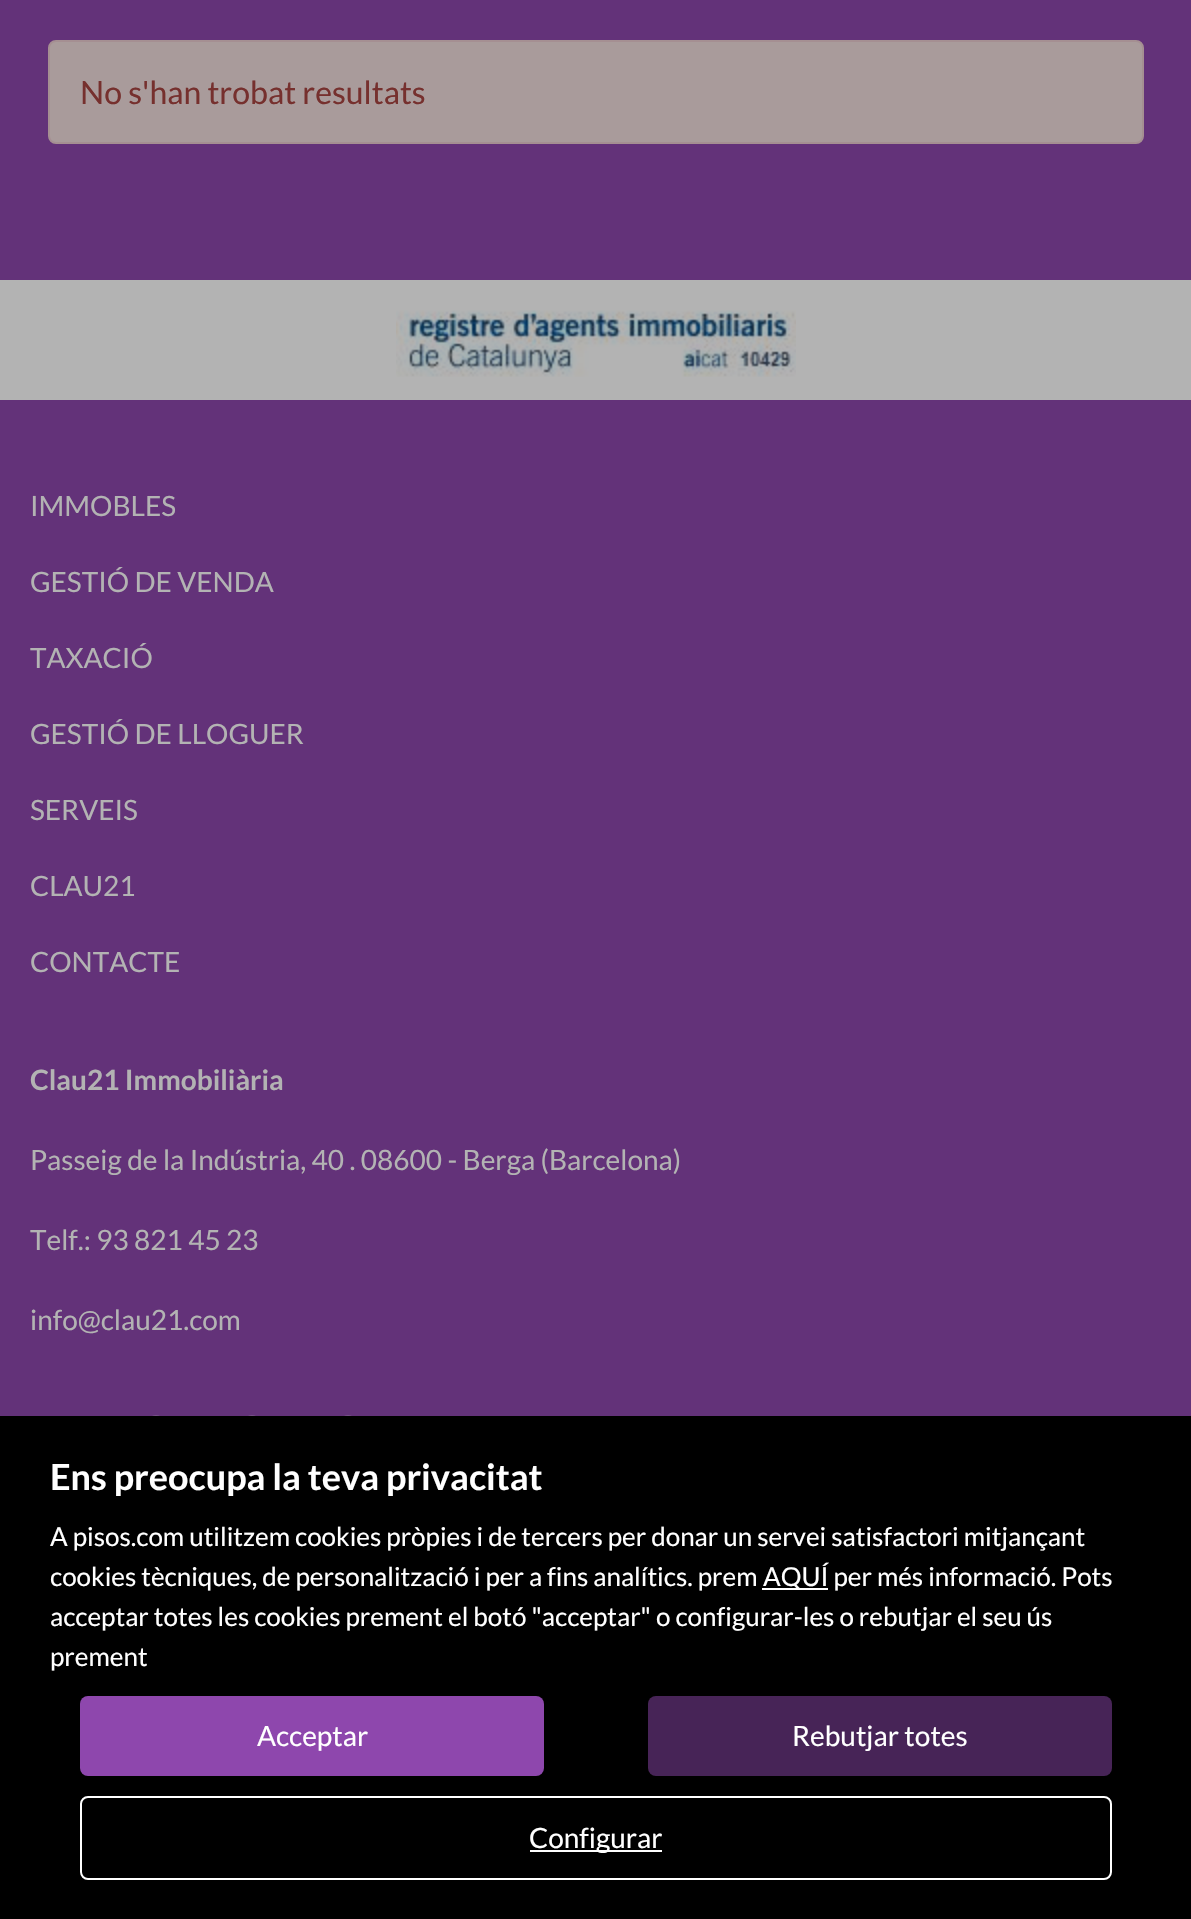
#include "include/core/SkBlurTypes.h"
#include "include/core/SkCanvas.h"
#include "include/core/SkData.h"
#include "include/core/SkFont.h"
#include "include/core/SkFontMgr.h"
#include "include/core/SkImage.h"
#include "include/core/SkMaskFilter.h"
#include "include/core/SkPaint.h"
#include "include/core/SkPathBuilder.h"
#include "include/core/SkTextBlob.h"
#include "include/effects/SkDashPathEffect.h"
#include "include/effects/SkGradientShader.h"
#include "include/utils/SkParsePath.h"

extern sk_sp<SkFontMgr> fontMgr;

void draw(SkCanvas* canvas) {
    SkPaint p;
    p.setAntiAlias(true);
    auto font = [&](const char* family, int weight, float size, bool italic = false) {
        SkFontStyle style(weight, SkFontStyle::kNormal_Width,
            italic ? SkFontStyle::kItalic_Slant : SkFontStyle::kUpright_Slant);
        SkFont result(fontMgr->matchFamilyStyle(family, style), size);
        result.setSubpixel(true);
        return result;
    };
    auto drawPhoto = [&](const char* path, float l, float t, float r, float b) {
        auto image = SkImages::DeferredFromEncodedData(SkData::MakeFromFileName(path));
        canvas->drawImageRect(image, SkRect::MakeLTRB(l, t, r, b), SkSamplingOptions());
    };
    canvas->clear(0xFFB3B3B3);
    p.setColor(0xFF633279);
    canvas->drawRect(SkRect::MakeLTRB(0, 0, 1191, 280), p);
    p.setColor(0xFFA99B9B);
    canvas->drawRoundRect(SkRect::MakeLTRB(49, 41, 1143, 143), 7, 7, p);
    p.setStyle(SkPaint::kStroke_Style);
    p.setStrokeWidth(2);
    p.setColor(0xFFA58F92);
    canvas->drawRoundRect(SkRect::MakeLTRB(49, 41, 1143, 143), 7, 7, p);
    auto font1 = font("Lato", 400, 32);
    p.setStyle(SkPaint::kFill_Style);
    p.setColor(0xFF76302E);
    canvas->drawString("No s'han trobat resultats", 80, 104, font1, p);
    drawPhoto("media/1.png", 396, 310, 796, 377);
    p.setColor(0xFF633279);
    canvas->drawRect(SkRect::MakeLTRB(0, 400, 1191, 1416), p);
    auto font2 = font("Lato", 400, 28);
    p.setColor(0xFFB3B3B3);
    {
        const struct { const char* s; float x, y; } items[] = {
            {"IMMOBLES", 30, 516},
            {"GESTIÓ DE VENDA", 30, 592},
            {"TAXACIÓ", 30, 668},
            {"GESTIÓ DE LLOGUER", 30, 744},
            {"SERVEIS", 30, 820},
            {"CLAU21", 30, 896},
            {"CONTACTE", 30, 972},
        };
        for (auto [s, x, y] : items) {
            canvas->drawString(s, x, y, font2, p);
        }
    }
    auto font3 = font("Lato", 700, 28);
    canvas->drawString("Clau21 Immobiliària", 30, 1090, font3, p);
    {
        const struct { const char* s; float x, y; } items[] = {
            {"Passeig de la Indústria, 40 . 08600 - Berga (Barcelona)", 30, 1170},
            {"Telf.: 93 821 45 23", 30, 1250},
            {"info@clau21.com", 30, 1330},
        };
        for (auto [s, x, y] : items) {
            canvas->drawString(s, x, y, font2, p);
        }
    }
    drawPhoto("media/2.png", 152, 1415, 160, 1416);
    drawPhoto("media/2.png", 248, 1415, 256, 1416);
    drawPhoto("media/2.png", 344, 1415, 352, 1416);
    p.setColor(0xFF000000);
    canvas->drawRect(SkRect::MakeLTRB(0, 1416, 1191, 1919), p);
    auto font4 = font("Lato", 700, 36);
    p.setColor(0xFFFFFFFF);
    canvas->drawString("Ens preocupa la teva privacitat", 50, 1490, font4, p);
    auto font5 = font("Lato", 400, 26);
    canvas->drawString("A pisos.com utilitzem cookies pròpies i de tercers per donar un servei satisfactori mitjançant", 50, 1546, font5, p);
    canvas->drawString("cookies tècniques, de personalització i per a fins analítics. prem", 50, 1586, font5, p);
    canvas->drawRect(SkRect::MakeLTRB(762, 1588, 828, 1590), p);
    {
        const struct { const char* s; float x, y; } items[] = {
            {"AQUÍ per més informació. Pots", 763, 1586},
            {"acceptar totes les cookies prement el botó \"acceptar\" o configurar-les o rebutjar el seu ús", 50, 1626},
            {"prement", 50, 1666},
        };
        for (auto [s, x, y] : items) {
            canvas->drawString(s, x, y, font5, p);
        }
    }
    p.setColor(0xFF8E47AD);
    canvas->drawRoundRect(SkRect::MakeLTRB(80, 1696, 544, 1776), 8, 8, p);
    p.setColor(0xFFFFFFFF);
    canvas->drawString("Acceptar", 257, 1746, font2, p);
    p.setColor(0xFF472457);
    canvas->drawRoundRect(SkRect::MakeLTRB(648, 1696, 1112, 1776), 8, 8, p);
    p.setColor(0xFFFFFFFF);
    canvas->drawString("Rebutjar totes", 792, 1746, font2, p);
    p.setStyle(SkPaint::kStroke_Style);
    canvas->drawRoundRect(SkRect::MakeLTRB(81, 1797, 1111, 1879), 7, 7, p);
    p.setStyle(SkPaint::kFill_Style);
    canvas->drawRect(SkRect::MakeLTRB(530, 1850, 662, 1852), p);
    canvas->drawString("Configurar", 529, 1848, font2, p);
}
